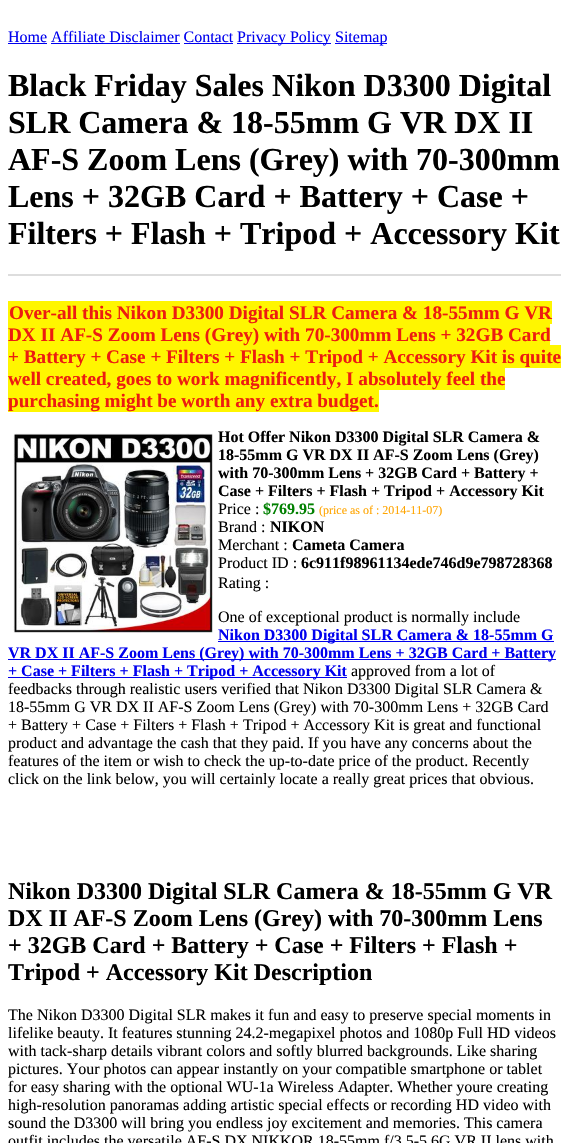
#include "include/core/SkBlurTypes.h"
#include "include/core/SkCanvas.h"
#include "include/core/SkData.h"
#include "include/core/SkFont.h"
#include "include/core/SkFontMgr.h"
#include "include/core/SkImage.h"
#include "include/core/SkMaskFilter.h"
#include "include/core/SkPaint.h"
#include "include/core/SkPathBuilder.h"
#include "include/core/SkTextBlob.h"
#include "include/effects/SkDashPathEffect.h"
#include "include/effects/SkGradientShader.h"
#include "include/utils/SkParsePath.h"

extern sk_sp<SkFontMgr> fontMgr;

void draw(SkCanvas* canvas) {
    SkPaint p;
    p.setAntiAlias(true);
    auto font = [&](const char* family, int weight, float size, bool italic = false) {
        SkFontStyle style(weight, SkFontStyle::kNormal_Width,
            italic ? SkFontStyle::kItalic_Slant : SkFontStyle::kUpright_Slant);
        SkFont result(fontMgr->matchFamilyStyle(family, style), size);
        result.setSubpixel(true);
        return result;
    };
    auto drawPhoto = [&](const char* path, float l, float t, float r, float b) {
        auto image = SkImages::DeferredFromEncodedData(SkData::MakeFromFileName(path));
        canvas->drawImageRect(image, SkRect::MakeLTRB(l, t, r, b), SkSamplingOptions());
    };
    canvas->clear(0xFFFFFFFF);
    auto font1 = font("Liberation Serif", 400, 16);
    p.setColor(0xFF0000EE);
    canvas->drawString("Home Affiliate Disclaimer Contact", 8, 42, font1, p);
    canvas->drawRect(SkRect::MakeLTRB(8, 43, 47, 44), p);
    canvas->drawRect(SkRect::MakeLTRB(237, 43, 331, 44), p);
    canvas->drawString("Privacy Policy", 237, 42, font1, p);
    canvas->drawRect(SkRect::MakeLTRB(335, 43, 387, 44), p);
    canvas->drawString("Sitemap", 335, 42, font1, p);
    canvas->drawRect(SkRect::MakeLTRB(51, 43, 180, 44), p);
    canvas->drawRect(SkRect::MakeLTRB(184, 43, 233, 44), p);
    auto font2 = font("Liberation Serif", 700, 32);
    p.setColor(0xFF000000);
    {
        const struct { const char* s; float x, y; } items[] = {
            {"Black Friday Sales Nikon D3300 Digital", 8, 96},
            {"SLR Camera & 18-55mm G VR DX II", 8, 133},
            {"AF-S Zoom Lens (Grey) with 70-300mm", 8, 170},
            {"Lens + 32GB Card + Battery + Case +", 8, 207},
            {"Filters + Flash + Tripod + Accessory Kit", 8, 244},
        };
        for (auto [s, x, y] : items) {
            canvas->drawString(s, x, y, font2, p);
        }
    }
    p.setColor(0xFFDDDDDD);
    canvas->drawRect(SkRect::MakeLTRB(8, 274, 561, 276), p);
    p.setColor(0xFFFFF600);
    canvas->drawRect(SkRect::MakeLTRB(8, 301, 552, 324), p);
    auto font3 = font("Liberation Serif", 700, 19.2f);
    p.setColor(0xFFED1C10);
    canvas->drawString("Over-all this Nikon D3300 Digital SLR Camera & 18-55mm G VR", 9, 319, font3, p);
    p.setColor(0xFFFFF600);
    canvas->drawRect(SkRect::MakeLTRB(8, 324, 550, 345), p);
    canvas->drawRect(SkRect::MakeLTRB(8, 345, 561, 368), p);
    p.setColor(0xFFED1C10);
    canvas->drawString("DX II AF-S Zoom Lens (Grey) with 70-300mm Lens + 32GB Card", 8, 341, font3, p);
    canvas->drawString("+ Battery + Case + Filters + Flash + Tripod + Accessory Kit is quite", 8, 363, font3, p);
    p.setColor(0xFFFFF600);
    canvas->drawRect(SkRect::MakeLTRB(8, 368, 505, 390), p);
    p.setColor(0xFFED1C10);
    canvas->drawString("well created, goes to work magnificently, I absolutely feel the", 8, 385, font3, p);
    p.setColor(0xFFFFF600);
    canvas->drawRect(SkRect::MakeLTRB(8, 390, 379, 412), p);
    p.setColor(0xFFED1C10);
    canvas->drawString("purchasing might be worth any extra budget.", 8, 407, font3, p);
    drawPhoto("media/1.png", 13, 433, 213, 633);
    auto font4 = font("Liberation Serif", 700, 16);
    p.setColor(0xFF000000);
    {
        const struct { const char* s; float x, y; } items[] = {
            {"Hot Offer Nikon D3300 Digital SLR Camera &", 218, 442},
            {"18-55mm G VR DX II AF-S Zoom Lens (Grey)", 218, 460},
            {"with 70-300mm Lens + 32GB Card + Battery +", 218, 478},
            {"Case + Filters + Flash + Tripod + Accessory Kit", 218, 496},
        };
        for (auto [s, x, y] : items) {
            canvas->drawString(s, x, y, font4, p);
        }
    }
    canvas->drawString("Price :", 218, 514, font1, p);
    p.setColor(0xFF008000);
    canvas->drawString("$769.95", 263, 514, font4, p);
    auto font5 = font("Liberation Serif", 400, 12);
    p.setColor(0xFFFFA500);
    canvas->drawString("(price as of : 2014-11-07)", 319, 514, font5, p);
    p.setColor(0xFF000000);
    canvas->drawString("Brand :", 218, 532, font1, p);
    canvas->drawString("NIKON", 270, 532, font4, p);
    canvas->drawString("Merchant :", 218, 550, font1, p);
    canvas->drawString("Cameta Camera", 292, 550, font4, p);
    canvas->drawString("Product ID :", 218, 568, font1, p);
    canvas->drawString("6c911f98961134ede746d9e798728368", 301, 568, font4, p);
    canvas->drawString("Rating :", 218, 588, font1, p);
    canvas->drawString("One of exceptional product is normally include", 218, 622, font1, p);
    p.setColor(0xFF0000EE);
    canvas->drawRect(SkRect::MakeLTRB(218, 641, 554, 642), p);
    canvas->drawString("Nikon D3300 Digital SLR Camera & 18-55mm G", 218, 640, font4, p);
    canvas->drawRect(SkRect::MakeLTRB(8, 659, 556, 660), p);
    canvas->drawString("VR DX II AF-S Zoom Lens (Grey) with 70-300mm Lens + 32GB Card + Battery", 8, 658, font4, p);
    canvas->drawRect(SkRect::MakeLTRB(8, 677, 347, 678), p);
    canvas->drawString("+ Case + Filters + Flash + Tripod + Accessory Kit", 8, 676, font4, p);
    p.setColor(0xFF000000);
    {
        const struct { const char* s; float x, y; } items[] = {
            {"approved from a lot of", 351, 676},
            {"feedbacks through realistic users verified that Nikon D3300 Digital SLR Camera &", 8, 694},
            {"18-55mm G VR DX II AF-S Zoom Lens (Grey) with 70-300mm Lens + 32GB Card", 8, 712},
            {"+ Battery + Case + Filters + Flash + Tripod + Accessory Kit is great and functional", 8, 730},
            {"product and advantage the cash that they paid. If you have any concerns about the", 8, 748},
            {"features of the item or wish to check the up-to-date price of the product. Recently", 8, 766},
            {"click on the link below, you will certainly locate a really great prices that obvious.", 8, 784},
        };
        for (auto [s, x, y] : items) {
            canvas->drawString(s, x, y, font1, p);
        }
    }
    auto font6 = font("Liberation Serif", 700, 24);
    {
        const struct { const char* s; float x, y; } items[] = {
            {"Nikon D3300 Digital SLR Camera & 18-55mm G VR", 8, 899},
            {"DX II AF-S Zoom Lens (Grey) with 70-300mm Lens", 8, 926},
            {"+ 32GB Card + Battery + Case + Filters + Flash +", 8, 953},
            {"Tripod + Accessory Kit Description", 8, 980},
        };
        for (auto [s, x, y] : items) {
            canvas->drawString(s, x, y, font6, p);
        }
    }
    {
        const struct { const char* s; float x, y; } items[] = {
            {"The Nikon D3300 Digital SLR makes it fun and easy to preserve special moments in", 8, 1020},
            {"lifelike beauty. It features stunning 24.2-megapixel photos and 1080p Full HD videos", 8, 1038},
            {"with tack-sharp details vibrant colors and softly blurred backgrounds. Like sharing", 8, 1056},
            {"pictures. Your photos can appear instantly on your compatible smartphone or tablet", 8, 1074},
            {"for easy sharing with the optional WU-1a Wireless Adapter. Whether youre creating", 8, 1092},
            {"high-resolution panoramas adding artistic special effects or recording HD video with", 8, 1110},
            {"sound the D3300 will bring you endless joy excitement and memories. This camera", 8, 1128},
            {"outfit includes the versatile AF-S DX NIKKOR 18-55mm f/3.5-5.6G VR II lens with", 8, 1146},
        };
        for (auto [s, x, y] : items) {
            canvas->drawString(s, x, y, font1, p);
        }
    }
}
